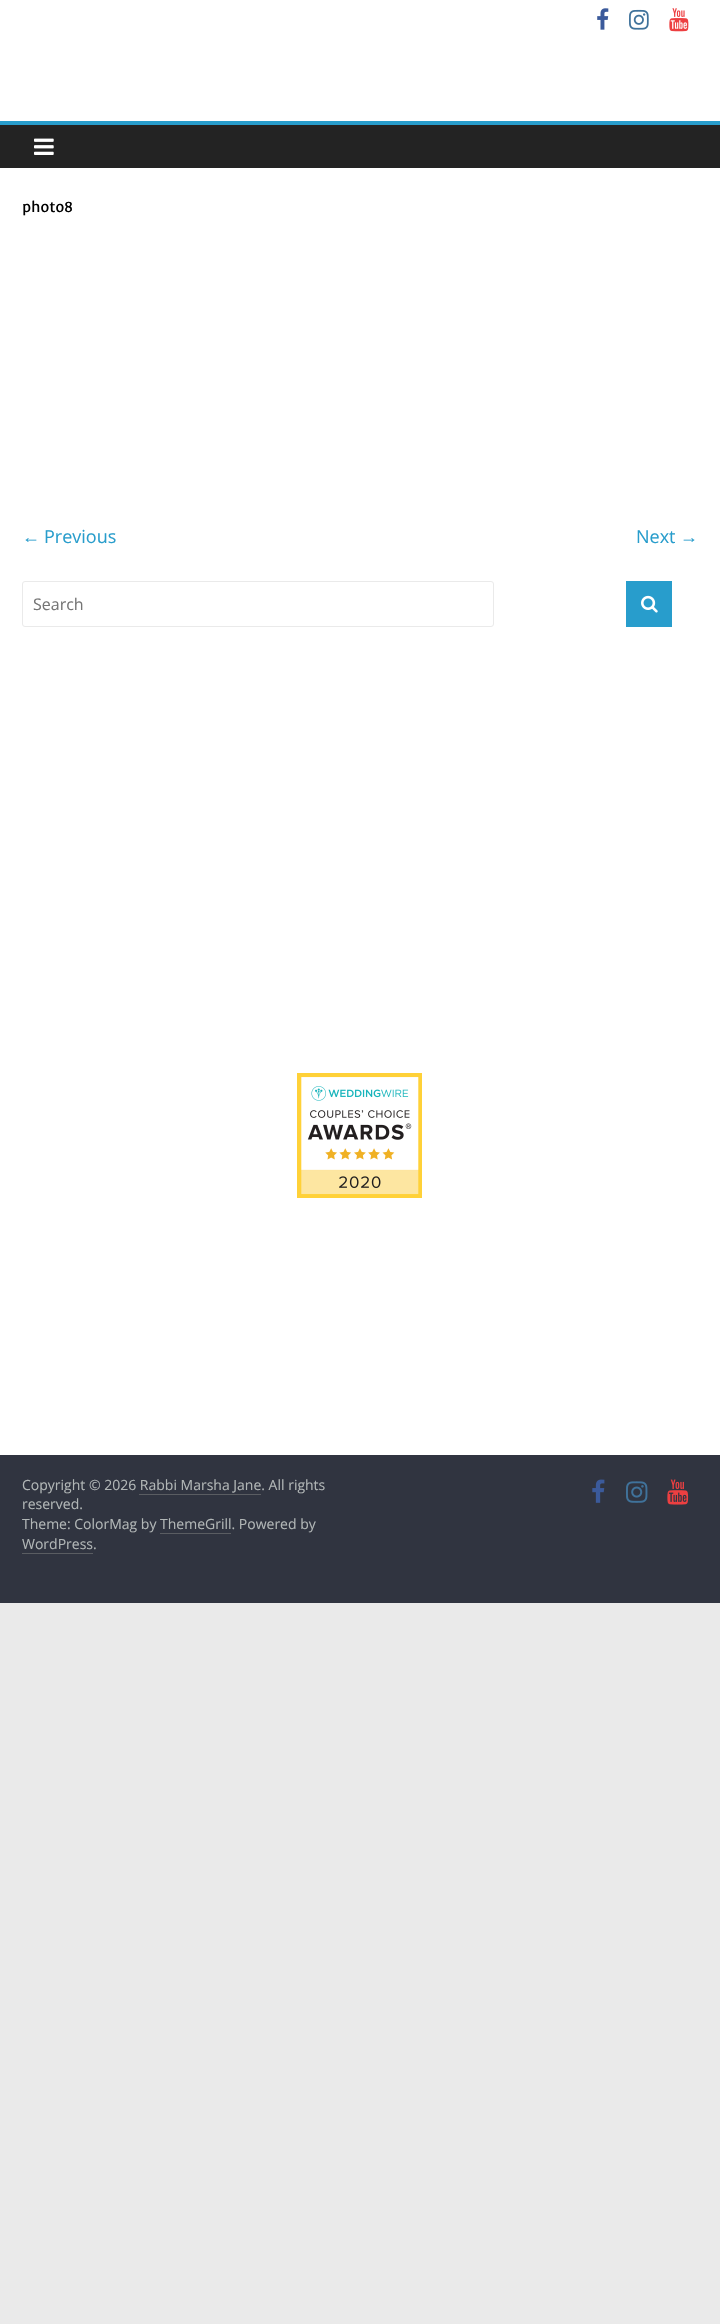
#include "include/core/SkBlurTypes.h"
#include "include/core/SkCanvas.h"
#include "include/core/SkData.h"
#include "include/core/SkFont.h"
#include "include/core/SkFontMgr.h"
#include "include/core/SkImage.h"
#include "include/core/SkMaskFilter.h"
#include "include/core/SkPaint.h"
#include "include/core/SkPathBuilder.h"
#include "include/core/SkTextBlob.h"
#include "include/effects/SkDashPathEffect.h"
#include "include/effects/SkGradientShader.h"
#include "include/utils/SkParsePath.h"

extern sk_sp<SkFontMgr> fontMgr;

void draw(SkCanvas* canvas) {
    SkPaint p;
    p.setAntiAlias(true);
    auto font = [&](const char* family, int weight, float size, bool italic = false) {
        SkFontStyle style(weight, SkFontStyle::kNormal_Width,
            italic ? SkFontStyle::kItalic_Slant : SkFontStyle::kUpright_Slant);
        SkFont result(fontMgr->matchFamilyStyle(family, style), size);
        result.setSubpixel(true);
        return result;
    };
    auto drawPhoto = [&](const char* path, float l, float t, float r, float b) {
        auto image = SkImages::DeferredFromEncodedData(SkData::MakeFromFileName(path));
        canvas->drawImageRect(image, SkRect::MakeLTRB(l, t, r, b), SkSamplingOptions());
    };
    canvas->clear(0xFFEAEAEA);
    p.setColor(0xFFFFFFFF);
    canvas->drawRect(SkRect::MakeLTRB(0, 0, 720, 121), p);
    drawPhoto("media/1.png", 597, 8, 609, 30);
    drawPhoto("media/2.png", 629, 9, 649, 30);
    drawPhoto("media/3.png", 669, 8, 689, 32);
    p.setColor(0xFF232323);
    canvas->drawRect(SkRect::MakeLTRB(0, 125, 720, 168), p);
    p.setColor(0xFF289DCC);
    canvas->drawRect(SkRect::MakeLTRB(0, 121, 720, 125), p);
    drawPhoto("media/4.png", 34, 138, 54, 155);
    p.setColor(0xFFFFFFFF);
    canvas->drawRect(SkRect::MakeLTRB(0, 168, 720, 1455), p);
    auto font1 = font("Convergence", 400, 15);
    p.setColor(0xFF000000);
    canvas->drawString("photo8", 22, 212, font1, p);
    auto font2 = font("Liberation Serif", 400, 18);
    p.setColor(0xFF289DCC);
    canvas->drawString("←", 22, 543, font2, p);
    auto font3 = font("Open Sans", 400, 18);
    canvas->drawString("Previous", 44, 543, font3, p);
    canvas->drawString("Next", 636, 543, font3, p);
    canvas->drawString("→", 680, 543, font2, p);
    p.setStyle(SkPaint::kStroke_Style);
    p.setStrokeWidth(1);
    p.setColor(0xFFEAEAEA);
    canvas->drawRoundRect(SkRect::MakeLTRB(22.5f, 581.5f, 493.5f, 626.5f), 2.5f, 2.5f, p);
    auto font4 = font("Open Sans", 400, 16);
    p.setStyle(SkPaint::kFill_Style);
    p.setColor(0xFF757575);
    canvas->drawString("Search", 33, 610, font4, p);
    p.setColor(0xFF289DCC);
    canvas->drawRect(SkRect::MakeLTRB(626, 581, 672, 627), p);
    drawPhoto("media/5.png", 641, 595, 658, 613);
    drawPhoto("media/6.png", 297, 1073, 422, 1198);
    p.setColor(0xFF303440);
    canvas->drawRect(SkRect::MakeLTRB(0, 1455, 720, 1603), p);
    auto font5 = font("Open Sans", 400, 14);
    p.setColor(0xFFB1B6B6);
    canvas->drawString("Copyright © 2026 Rabbi Marsha Jane. All rights", 22, 1490, font5, p);
    p.setColor(0xFF5A5D62);
    canvas->drawRect(SkRect::MakeLTRB(139, 1494, 261, 1495), p);
    p.setColor(0xFFB1B6B6);
    canvas->drawString("reserved.", 22, 1509, font5, p);
    canvas->drawString("Theme: ColorMag by ThemeGrill. Powered by", 22, 1529, font5, p);
    p.setColor(0xFF5A5D62);
    canvas->drawRect(SkRect::MakeLTRB(160, 1533, 231, 1534), p);
    p.setColor(0xFFB1B6B6);
    canvas->drawString("WordPress.", 22, 1549, font5, p);
    p.setColor(0xFF5A5D62);
    canvas->drawRect(SkRect::MakeLTRB(22, 1553, 93, 1554), p);
    drawPhoto("media/7.png", 592, 1479, 605, 1503);
    drawPhoto("media/8.png", 626, 1481, 648, 1503);
    drawPhoto("media/9.png", 667, 1479, 689, 1505);
}
